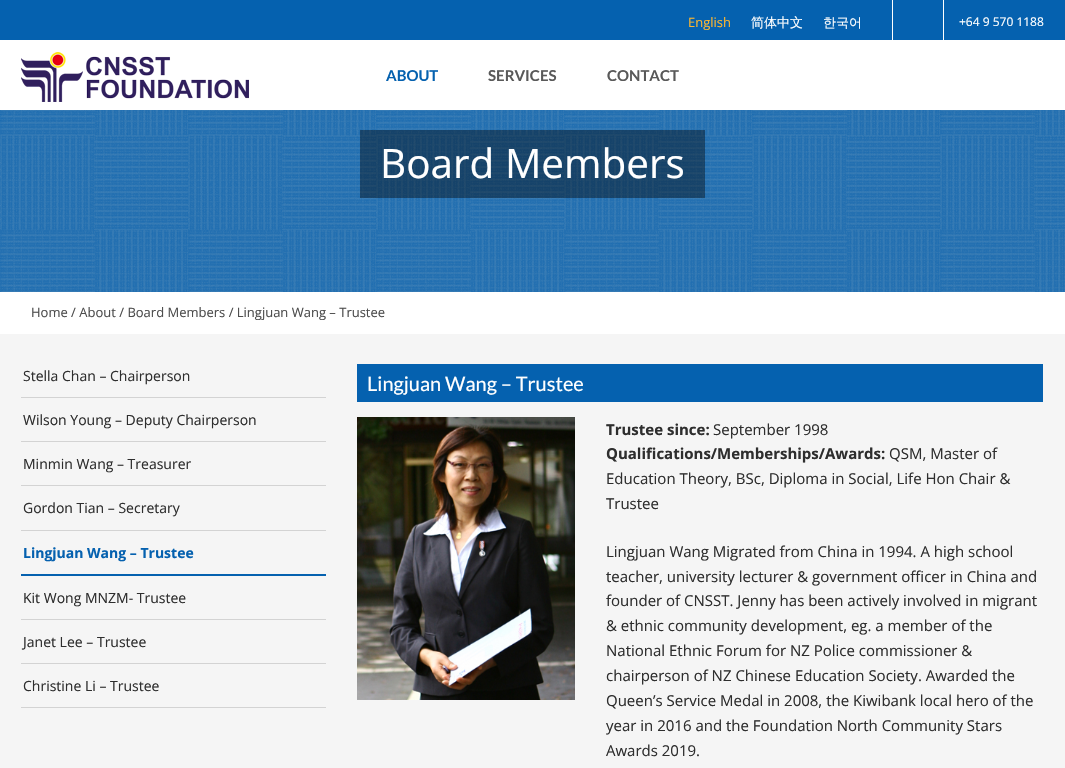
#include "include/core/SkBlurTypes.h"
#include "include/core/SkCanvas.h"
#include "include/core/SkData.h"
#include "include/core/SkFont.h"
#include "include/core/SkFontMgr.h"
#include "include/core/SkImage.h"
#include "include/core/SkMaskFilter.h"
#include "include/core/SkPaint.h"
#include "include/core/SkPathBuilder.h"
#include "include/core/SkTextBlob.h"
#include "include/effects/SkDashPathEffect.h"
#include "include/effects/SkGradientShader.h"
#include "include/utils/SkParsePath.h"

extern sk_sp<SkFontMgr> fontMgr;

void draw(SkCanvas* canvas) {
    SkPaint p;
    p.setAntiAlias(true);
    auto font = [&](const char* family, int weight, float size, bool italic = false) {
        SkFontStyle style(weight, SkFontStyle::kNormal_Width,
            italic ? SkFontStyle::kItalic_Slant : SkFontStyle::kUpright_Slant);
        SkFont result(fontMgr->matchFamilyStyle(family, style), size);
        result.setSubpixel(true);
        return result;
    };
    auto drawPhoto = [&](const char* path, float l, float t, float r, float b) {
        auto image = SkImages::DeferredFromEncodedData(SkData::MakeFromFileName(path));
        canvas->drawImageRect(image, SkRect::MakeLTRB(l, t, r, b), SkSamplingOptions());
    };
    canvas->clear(0xFFF5F5F5);
    p.setColor(0xFF0561AF);
    canvas->drawRect(SkRect::MakeLTRB(0, 0, 1065, 40), p);
    p.setColor(0xFFFFFFFF);
    canvas->drawRect(SkRect::MakeLTRB(892, 0, 893, 40), p);
    auto font1 = font("Open Sans", 400, 13);
    p.setColor(0xFFFBB632);
    canvas->drawString("English", 688, 27, font1, p);
    auto font2 = font("WenQuanYi Zen Hei", 500, 13);
    p.setColor(0xFFFFFFFF);
    canvas->drawString("简体中文", 751, 27, font2, p);
    canvas->drawString("한국어", 823, 27, font2, p);
    canvas->drawRect(SkRect::MakeLTRB(943, 0, 944, 42), p);
    auto font3 = font("Open Sans", 400, 12);
    canvas->drawString("+64 9 570 1188", 959, 26, font3, p);
    canvas->drawRect(SkRect::MakeLTRB(0, 40, 1065, 110), p);
    drawPhoto("media/1.png", 21, 52, 249, 102);
    auto font4 = font("Lato", 700, 15);
    p.setColor(0xFF0561AF);
    canvas->drawString("ABOUT", 386, 81, font4, p);
    p.setColor(0xFF595959);
    canvas->drawString("SERVICES", 488, 81, font4, p);
    canvas->drawString("CONTACT", 607, 81, font4, p);
    p.setColor(0xFF0561AF);
    canvas->drawRect(SkRect::MakeLTRB(0, 110, 1065, 292), p);
    drawPhoto("media/2.png", 0, 110, 1065, 292);
    p.setColor(0x66000000);
    canvas->drawRect(SkRect::MakeLTRB(360, 130, 705, 198), p);
    auto font5 = font("Open Sans", 400, 40.5f);
    p.setColor(0xFFFFFFFF);
    canvas->drawString("Board Members", 380, 178, font5, p);
    canvas->drawRect(SkRect::MakeLTRB(0, 292, 1065, 334), p);
    p.setColor(0xFF4D4D4D);
    canvas->drawString("Home / About / Board Members / Lingjuan Wang – Trustee", 31, 317, font1, p);
    p.setColor(0xFFD3D3D3);
    canvas->drawRect(SkRect::MakeLTRB(21, 397, 326, 398), p);
    auto font6 = font("Open Sans", 400, 14);
    p.setColor(0xFF2E2E2E);
    canvas->drawString("Stella Chan – Chairperson", 23, 381, font6, p);
    p.setColor(0xFFD3D3D3);
    canvas->drawRect(SkRect::MakeLTRB(21, 441, 326, 442), p);
    p.setColor(0xFF2E2E2E);
    canvas->drawString("Wilson Young – Deputy Chairperson", 23, 425, font6, p);
    p.setColor(0xFFD3D3D3);
    canvas->drawRect(SkRect::MakeLTRB(21, 485, 326, 486), p);
    p.setColor(0xFF2E2E2E);
    canvas->drawString("Minmin Wang – Treasurer", 23, 469, font6, p);
    p.setColor(0xFFD3D3D3);
    canvas->drawRect(SkRect::MakeLTRB(21, 530, 326, 531), p);
    p.setColor(0xFF2E2E2E);
    canvas->drawString("Gordon Tian – Secretary", 23, 513, font6, p);
    p.setColor(0xFF0561AF);
    canvas->drawRect(SkRect::MakeLTRB(21, 574, 326, 576), p);
    auto font7 = font("Open Sans", 700, 14);
    canvas->drawString("Lingjuan Wang – Trustee", 23, 558, font7, p);
    p.setColor(0xFFD3D3D3);
    canvas->drawRect(SkRect::MakeLTRB(21, 619, 326, 620), p);
    p.setColor(0xFF2E2E2E);
    canvas->drawString("Kit Wong MNZM- Trustee", 23, 603, font6, p);
    p.setColor(0xFFD3D3D3);
    canvas->drawRect(SkRect::MakeLTRB(21, 663, 326, 664), p);
    p.setColor(0xFF2E2E2E);
    canvas->drawString("Janet Lee – Trustee", 23, 647, font6, p);
    p.setColor(0xFFD3D3D3);
    canvas->drawRect(SkRect::MakeLTRB(21, 707, 326, 708), p);
    p.setColor(0xFF2E2E2E);
    canvas->drawString("Christine Li – Trustee", 23, 691, font6, p);
    p.setColor(0xFF0561AF);
    canvas->drawRect(SkRect::MakeLTRB(357, 364, 1043, 402), p);
    auto font8 = font("Lato", 400, 20);
    p.setColor(0xFFFFFFFF);
    canvas->drawString("Lingjuan Wang – Trustee", 367, 391, font8, p);
    drawPhoto("media/3.png", 357, 417, 575, 700);
    auto font9 = font("Open Sans", 700, 15);
    p.setColor(0xFF2E2E2E);
    canvas->drawString("Trustee since:", 606, 435, font9, p);
    auto font10 = font("Open Sans", 400, 15);
    canvas->drawString("September 1998", 713, 435, font10, p);
    canvas->drawString("Qualifications/Memberships/Awards:", 606, 459, font9, p);
    {
        const struct { const char* s; float x, y; } items[] = {
            {"QSM, Master of", 889, 459},
            {"Education Theory, BSc, Diploma in Social, Life Hon Chair &", 606, 484},
            {"Trustee", 606, 509},
            {"Lingjuan Wang Migrated from China in 1994. A high school", 606, 557},
            {"teacher, university lecturer & government officer in China and", 606, 582},
            {"founder of CNSST. Jenny has been actively involved in migrant", 606, 606},
            {"& ethnic community development, eg. a member of the", 606, 631},
            {"National Ethnic Forum for NZ Police commissioner &", 606, 656},
            {"chairperson of NZ Chinese Education Society. Awarded the", 606, 681},
            {"Queen’s Service Medal in 2008, the Kiwibank local hero of the", 606, 706},
            {"year in 2016 and the Foundation North Community Stars", 606, 731},
            {"Awards 2019.", 606, 756},
        };
        for (auto [s, x, y] : items) {
            canvas->drawString(s, x, y, font10, p);
        }
    }
}
